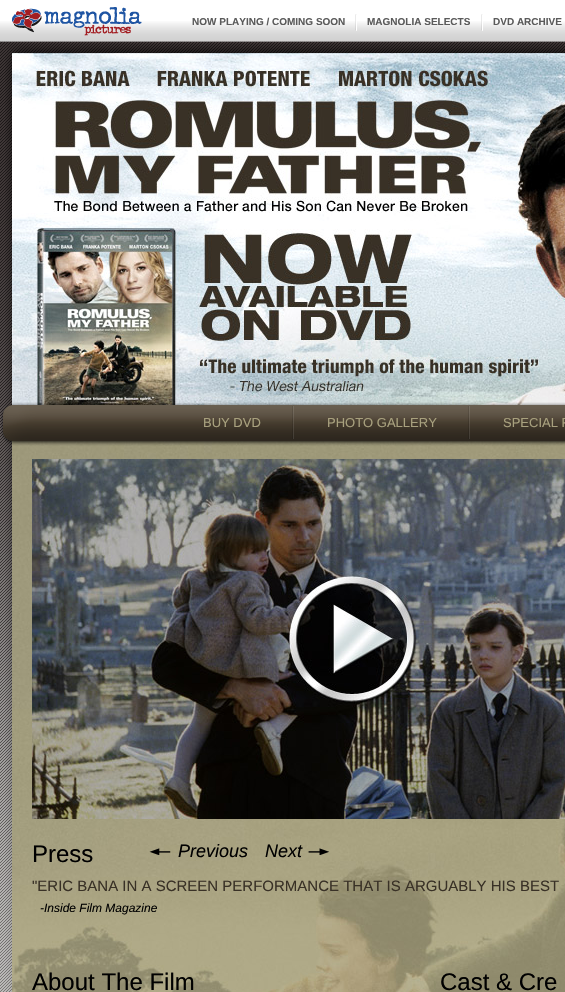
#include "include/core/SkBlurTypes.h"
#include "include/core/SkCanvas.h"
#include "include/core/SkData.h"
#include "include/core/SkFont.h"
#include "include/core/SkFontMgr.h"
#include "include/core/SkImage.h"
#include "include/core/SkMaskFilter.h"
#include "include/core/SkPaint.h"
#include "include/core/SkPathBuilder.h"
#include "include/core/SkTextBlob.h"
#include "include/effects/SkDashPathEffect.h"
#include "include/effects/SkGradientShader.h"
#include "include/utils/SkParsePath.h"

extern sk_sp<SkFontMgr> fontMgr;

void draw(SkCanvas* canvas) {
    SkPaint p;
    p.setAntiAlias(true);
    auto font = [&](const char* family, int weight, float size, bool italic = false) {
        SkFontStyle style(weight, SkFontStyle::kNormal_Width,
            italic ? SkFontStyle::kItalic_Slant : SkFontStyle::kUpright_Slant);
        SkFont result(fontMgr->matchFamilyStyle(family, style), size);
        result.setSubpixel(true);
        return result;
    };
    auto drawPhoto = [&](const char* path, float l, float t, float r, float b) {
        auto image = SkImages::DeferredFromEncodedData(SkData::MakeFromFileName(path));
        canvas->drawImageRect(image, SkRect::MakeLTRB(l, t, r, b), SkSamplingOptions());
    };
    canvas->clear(0xFFFFFFFF);
    drawPhoto("media/1.png", 0, 21, 565, 42);
    drawPhoto("media/2.png", 12, 7, 142, 36);
    drawPhoto("media/3.png", 355, 14, 357, 31);
    auto font1 = font("Liberation Sans", 700, 10);
    p.setColor(0xFF5B5B5B);
    canvas->drawString("NOW PLAYING / COMING SOON", 192, 25, font1, p);
    drawPhoto("media/3.png", 481, 14, 483, 31);
    canvas->drawString("MAGNOLIA SELECTS", 367, 25, font1, p);
    canvas->drawString("DVD ARCHIVE", 493, 25, font1, p);
    drawPhoto("media/4.png", 0, 42, 565, 992);
    drawPhoto("media/5.png", 7, 44, 565, 53);
    drawPhoto("media/6.png", 5, 53, 12, 992);
    drawPhoto("media/9.png", 12, 53, 565, 992);
    drawPhoto("media/7.png", 1, 402, 565, 446);
    drawPhoto("media/8.png", 292, 406, 294, 439);
    auto font2 = font("Liberation Sans", 400, 13);
    p.setColor(0xFFA8A17E);
    canvas->drawString("BUY DVD", 203, 427, font2, p);
    drawPhoto("media/8.png", 468, 406, 470, 439);
    canvas->drawString("PHOTO GALLERY", 327, 427, font2, p);
    canvas->drawString("SPECIAL F", 503, 427, font2, p);
    drawPhoto("media/10.png", 32, 459, 565, 819);
    auto font3 = font("Liberation Sans", 400, 24);
    p.setColor(0xFF000000);
    canvas->drawString("Press", 32, 862, font3, p);
    drawPhoto("media/11.png", 149, 848, 171, 855);
    auto font4 = font("Liberation Sans", 400, 18, true);
    canvas->drawString("Previous", 178, 857, font4, p);
    canvas->drawString("Next", 265, 857, font4, p);
    drawPhoto("media/12.png", 308, 848, 329, 855);
    auto font5 = font("Liberation Sans", 400, 15);
    p.setColor(0xFF393126);
    canvas->drawString("\"ERIC BANA IN A SCREEN PERFORMANCE THAT IS ARGUABLY HIS BEST", 32, 891, font5, p);
    auto font6 = font("Liberation Sans", 400, 12, true);
    p.setColor(0xFF000000);
    canvas->drawString("-Inside Film Magazine", 40, 912, font6, p);
    canvas->drawString("About The Film", 32, 990, font3, p);
    canvas->drawString("Cast & Cre", 440, 990, font3, p);
}
